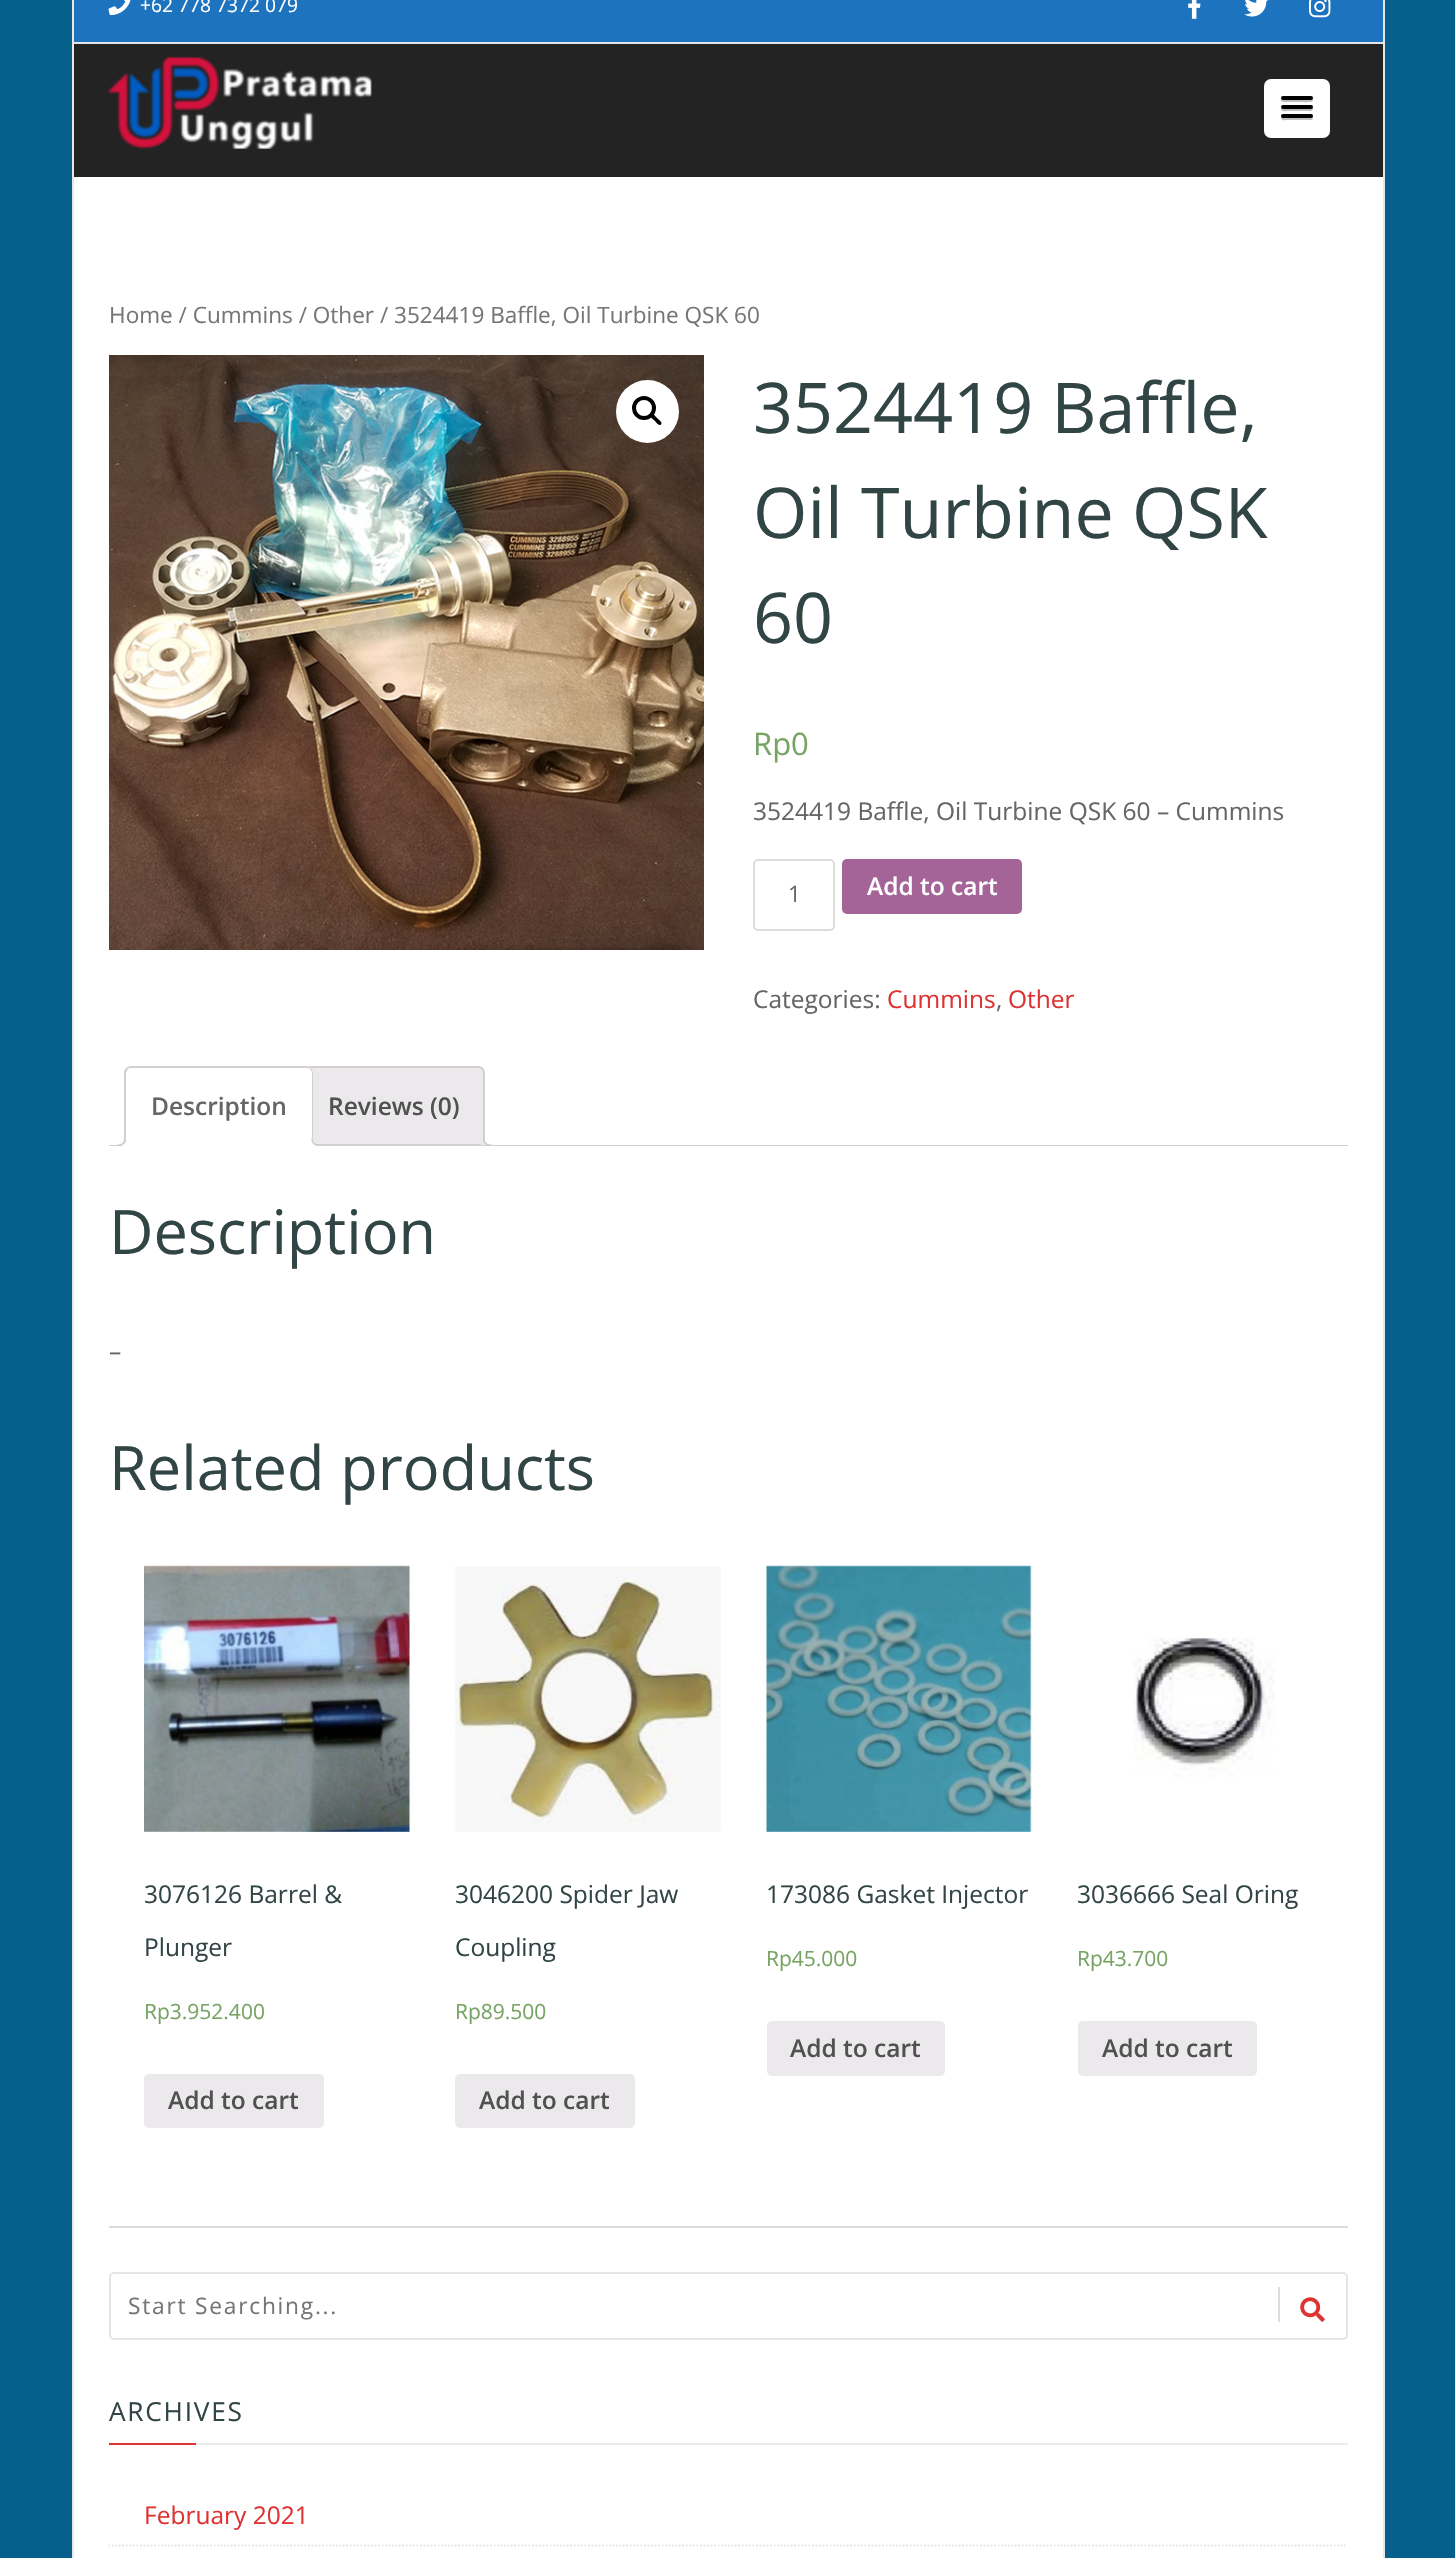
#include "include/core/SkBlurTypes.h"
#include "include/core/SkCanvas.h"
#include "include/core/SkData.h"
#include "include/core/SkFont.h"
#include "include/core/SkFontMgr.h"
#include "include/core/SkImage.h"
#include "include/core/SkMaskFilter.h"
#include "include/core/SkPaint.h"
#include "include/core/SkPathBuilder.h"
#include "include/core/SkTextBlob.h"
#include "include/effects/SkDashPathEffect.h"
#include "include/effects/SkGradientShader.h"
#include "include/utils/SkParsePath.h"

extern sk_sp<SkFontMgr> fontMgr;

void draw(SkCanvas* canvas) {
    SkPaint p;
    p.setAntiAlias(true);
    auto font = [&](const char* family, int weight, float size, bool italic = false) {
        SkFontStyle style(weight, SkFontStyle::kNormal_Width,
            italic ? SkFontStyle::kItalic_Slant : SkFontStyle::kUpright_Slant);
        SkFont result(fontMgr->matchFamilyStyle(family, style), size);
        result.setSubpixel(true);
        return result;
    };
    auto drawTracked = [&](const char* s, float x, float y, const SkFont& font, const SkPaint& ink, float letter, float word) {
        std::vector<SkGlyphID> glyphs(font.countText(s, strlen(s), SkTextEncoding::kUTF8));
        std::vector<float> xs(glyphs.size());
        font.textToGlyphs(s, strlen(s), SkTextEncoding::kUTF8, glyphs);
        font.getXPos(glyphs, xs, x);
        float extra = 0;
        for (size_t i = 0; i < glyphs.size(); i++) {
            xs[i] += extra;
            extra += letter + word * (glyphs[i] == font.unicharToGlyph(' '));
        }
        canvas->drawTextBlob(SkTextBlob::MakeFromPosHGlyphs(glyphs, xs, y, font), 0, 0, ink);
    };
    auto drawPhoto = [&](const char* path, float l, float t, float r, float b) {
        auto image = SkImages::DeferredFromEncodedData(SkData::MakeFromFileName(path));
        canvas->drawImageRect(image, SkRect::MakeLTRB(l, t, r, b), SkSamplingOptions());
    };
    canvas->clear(0xFF075F8C);
    {
        const struct { float l, t, r, b; SkColor color; } items[] = {
            {74, 177, 1383, 2558, 0xFFFFFFFF},
            {1383, 0, 1385, 2558, 0xFFE7E7E7},
            {72, 0, 74, 2558, 0xFFE7E7E7},
            {74, 0, 1383, 42, 0xFF1E73BE},
            {74, 42, 1383, 44, 0xFFE4E4E4},
        };
        for (auto [l, t, r, b, color] : items) {
            p.setColor(color);
            canvas->drawRect(SkRect::MakeLTRB(l, t, r, b), p);
        }
    }
    drawPhoto("media/1.png", 108, 0, 131, 16);
    auto font1 = font("Open Sans", 400, 19.25f);
    p.setColor(0xFFFFFFFF);
    canvas->drawString("+62 778 7372 079", 140, 12, font1, p);
    drawPhoto("media/2.png", 1188, 0, 1201, 19);
    drawPhoto("media/3.png", 1244, 0, 1268, 17);
    drawPhoto("media/4.png", 1309, 0, 1331, 18);
    p.setColor(0xFF232323);
    canvas->drawRect(SkRect::MakeLTRB(74, 44, 1383, 177), p);
    drawPhoto("media/5.png", 108, 56, 372, 149);
    p.setColor(0xFFFFFFFF);
    canvas->drawRoundRect(SkRect::MakeLTRB(1264, 79, 1330, 138), 7, 7, p);
    p.setColor(0xFFBFBFBF);
    canvas->drawPath(SkPathBuilder().moveTo(1281.5f, 99).cubicTo(1279, 103, 1287, 102, 1287.5f, 102).lineTo(1297, 102).cubicTo(1299.5f, 102, 1311, 102.5f, 1312.5f, 101.5f).cubicTo(1313, 100.5f, 1313, 99.5f, 1312.5f, 98.5f).lineTo(1311.5f, 99.5f).lineTo(1282.5f, 99.5f).close().detach(), p);
    p.setColor(0xFF000000);
    canvas->drawRoundRect(SkRect::MakeLTRB(1281, 96, 1313, 100), 2, 2, p);
    p.setColor(0xFFBFBFBF);
    canvas->drawPath(SkPathBuilder().moveTo(1281.5f, 108).lineTo(1281, 109.5f).cubicTo(1281.5f, 112, 1286.5f, 111, 1287.5f, 111).lineTo(1306.5f, 111).cubicTo(1308, 111, 1313, 112, 1313, 109).lineTo(1312.5f, 107.5f).cubicTo(1312, 108, 1311.5f, 108.5f, 1311, 108.5f).lineTo(1282.5f, 108.5f).close().detach(), p);
    p.setColor(0xFF000000);
    canvas->drawRoundRect(SkRect::MakeLTRB(1281, 105, 1313, 109), 2, 2, p);
    p.setColor(0xFFBFBFBF);
    canvas->drawPath(SkPathBuilder().moveTo(1281.5f, 116.5f).cubicTo(1281, 117, 1281, 118, 1281, 118.5f).cubicTo(1281.5f, 121, 1286.5f, 120, 1287.5f, 120).lineTo(1311, 120).cubicTo(1313, 120, 1313.5f, 117.5f, 1312, 116.5f).lineTo(1311, 117).lineTo(1282.5f, 117).close().detach(), p);
    p.setColor(0xFF000000);
    canvas->drawRoundRect(SkRect::MakeLTRB(1281, 114, 1313, 118), 2, 2, p);
    auto font2 = font("Open Sans", 400, 22.55f);
    p.setColor(0xFF767676);
    canvas->drawString("Home / Cummins / Other / 3524419 Baffle, Oil Turbine QSK 60", 109, 323, font2, p);
    drawPhoto("media/6.png", 109, 355, 704, 950);
    p.setColor(0xFFFFFFFF);
    canvas->drawCircle(647.5f, 411.5f, 31.5f, p);
    p.setStyle(SkPaint::kStroke_Style);
    p.setStrokeWidth(4);
    p.setColor(0xFF000000);
    canvas->drawCircle(644, 408, 10, p);
    p.setStyle(SkPaint::kFill_Style);
    canvas->drawPath(SkPathBuilder().moveTo(651, 414.5f).cubicTo(653, 412.5f, 656, 417, 657, 418).cubicTo(658.5f, 419.5f, 663, 422.5f, 661, 424.5f).cubicTo(659, 426.5f, 656, 422, 654.5f, 420.5f).cubicTo(653.5f, 419.5f, 649, 416.5f, 651, 414.5f).close().detach(), p);
    auto font3 = font("Open Sans", 400, 70);
    p.setColor(0xFF324545);
    {
        const struct { const char* s; float x, y; } items[] = {
            {"3524419 Baffle,", 753, 433},
            {"Oil Turbine QSK", 753, 538},
            {"60", 753, 643},
        };
        for (auto [s, x, y] : items) {
            canvas->drawString(s, x, y, font3, p);
        }
    }
    auto font4 = font("Open Sans", 400, 31);
    p.setColor(0xFF77A464);
    canvas->drawString("Rp0", 753, 755, font4, p);
    auto font5 = font("Open Sans", 400, 24.5f);
    p.setColor(0xFF666666);
    canvas->drawString("3524419 Baffle, Oil Turbine QSK 60 – Cummins", 753, 820, font5, p);
    p.setStyle(SkPaint::kStroke_Style);
    p.setStrokeWidth(2);
    p.setColor(0xFFDDDDDD);
    canvas->drawRoundRect(SkRect::MakeLTRB(754, 860, 834, 930), 4, 4, p);
    auto font6 = font("Open Sans", 400, 22.75f);
    p.setStyle(SkPaint::kFill_Style);
    p.setColor(0xFF666666);
    canvas->drawString("1", 788, 902, font6, p);
    p.setColor(0xFFA46497);
    canvas->drawRoundRect(SkRect::MakeLTRB(842, 859, 1022, 914), 5, 5, p);
    auto font7 = font("Open Sans", 600, 24.5f);
    p.setColor(0xFFFFFFFF);
    canvas->drawString("Add to cart", 867, 895, font7, p);
    p.setColor(0xFF666666);
    canvas->drawString("Categories:", 753, 1008, font5, p);
    p.setColor(0xFFDD3333);
    canvas->drawString("Cummins", 887, 1008, font5, p);
    p.setColor(0xFF666666);
    canvas->drawString(",", 996, 1008, font5, p);
    p.setColor(0xFFDD3333);
    canvas->drawString("Other", 1008, 1008, font5, p);
    p.setColor(0xFFEBE9EB);
    canvas->drawPath(SkPathBuilder().moveTo(308, 1067).lineTo(478, 1067).cubicTo(481.5f, 1067, 484, 1069.5f, 484, 1073).lineTo(484, 1145).lineTo(302, 1145).lineTo(302, 1073).cubicTo(302, 1069.5f, 304.5f, 1067, 308, 1067).close().detach(), p);
    p.setStyle(SkPaint::kStroke_Style);
    p.setColor(0xFFD3CED2);
    canvas->drawPath(SkPathBuilder().moveTo(308, 1067).lineTo(478, 1067).cubicTo(481.5f, 1067, 484, 1069.5f, 484, 1073).lineTo(484, 1145).lineTo(302, 1145).lineTo(302, 1073).cubicTo(302, 1069.5f, 304.5f, 1067, 308, 1067).close().detach(), p);
    canvas->save();
    canvas->clipRect(SkRect::MakeLTRB(109, 1066, 1348, 1146));
    p.setStyle(SkPaint::kFill_Style);
    p.setColor(0xFFEBE9EB);
    canvas->drawPath(SkPathBuilder().moveTo(480, 1141).cubicTo(480, 1146.5f, 482, 1150, 488, 1150).lineTo(488, 1146).cubicTo(485.5f, 1145.5f, 484, 1143.5f, 483, 1141).close().detach(), p);
    canvas->restore();
    p.setColor(0xFFD3CED2);
    canvas->drawPath(SkPathBuilder(SkPathFillType::kEvenOdd).moveTo(483, 1137.5f).lineTo(492, 1137.5f).lineTo(492, 1146).cubicTo(487.5f, 1146, 483, 1144.5f, 483, 1139).close().moveTo(485, 1137.5f).lineTo(492, 1137.5f).lineTo(492, 1144.5f).cubicTo(488.5f, 1144.5f, 485, 1143.5f, 485, 1139).close().detach(), p);
    canvas->drawRect(SkRect::MakeLTRB(109, 1145, 1348, 1146), p);
    p.setColor(0xFFFFFFFF);
    canvas->drawPath(SkPathBuilder().moveTo(131, 1066).lineTo(306, 1066).cubicTo(310, 1066, 313, 1069, 313, 1073).lineTo(313, 1146).lineTo(124, 1146).lineTo(124, 1073).cubicTo(124, 1069, 127, 1066, 131, 1066).close().detach(), p);
    p.setColor(0xFFD3CED2);
    canvas->drawPath(SkPathBuilder().moveTo(131, 1066).cubicTo(129, 1066, 127, 1067, 126, 1068).lineTo(128, 1069).cubicTo(128, 1068, 130, 1068, 131, 1068).lineTo(306, 1068).cubicTo(307, 1068, 309, 1068, 310, 1069).lineTo(311, 1068).cubicTo(310, 1067, 308, 1066, 306, 1066).close().detach(), p);
    canvas->drawPath(SkPathBuilder().moveTo(313, 1146).lineTo(313, 1073).cubicTo(313, 1071, 312, 1069, 311, 1068).lineTo(310, 1069).lineTo(312, 1072).lineTo(312, 1144).lineTo(311, 1144).close().detach(), p);
    p.setColor(0xFFFFFFFF);
    canvas->drawPath(SkPathBuilder().moveTo(313, 1146).lineTo(311, 1144).lineTo(126, 1144).lineTo(124, 1146).close().detach(), p);
    p.setColor(0xFFD3CED2);
    canvas->drawPath(SkPathBuilder().moveTo(124, 1071).lineTo(126, 1068).lineTo(128, 1069).lineTo(126, 1072).lineTo(126, 1144).lineTo(124, 1146).close().detach(), p);
    p.setColor(0xFF666666);
    canvas->drawString("Description", 151, 1115, font7, p);
    canvas->save();
    canvas->clipRect(SkRect::MakeLTRB(109, 1066, 1348, 1146));
    p.setColor(0xFFFFFFFF);
    canvas->drawPath(SkPathBuilder().moveTo(121, 1146).lineTo(121, 1150).cubicTo(127.5f, 1150, 130, 1147.5f, 130, 1141).lineTo(126, 1141).cubicTo(125, 1143.5f, 123.5f, 1145.5f, 121, 1146).close().detach(), p);
    canvas->restore();
    p.setColor(0xFFD3CED2);
    canvas->drawPath(SkPathBuilder(SkPathFillType::kEvenOdd).moveTo(117, 1137.5f).lineTo(126, 1137.5f).cubicTo(126, 1143.5f, 123.5f, 1146, 117, 1146).close().moveTo(117, 1137.5f).lineTo(124, 1137.5f).cubicTo(124, 1142.5f, 122.5f, 1144.5f, 117, 1144.5f).close().detach(), p);
    canvas->save();
    canvas->clipRect(SkRect::MakeLTRB(109, 1066, 1348, 1146));
    p.setColor(0xFFFFFFFF);
    canvas->drawPath(SkPathBuilder().moveTo(308, 1141).cubicTo(308, 1147.5f, 310.5f, 1150, 317, 1150).lineTo(317, 1146).cubicTo(314.5f, 1145.5f, 312.5f, 1143.5f, 311.5f, 1141).close().detach(), p);
    canvas->restore();
    p.setColor(0xFFD3CED2);
    canvas->drawPath(SkPathBuilder(SkPathFillType::kEvenOdd).moveTo(311.5f, 1137.5f).lineTo(320, 1137.5f).lineTo(320, 1146).cubicTo(316, 1146, 311.5f, 1144.5f, 311.5f, 1139).close().moveTo(313, 1137.5f).lineTo(320, 1137.5f).lineTo(320, 1144.5f).cubicTo(317, 1144.5f, 313, 1143.5f, 313, 1139).close().detach(), p);
    p.setColor(0xFF515151);
    canvas->drawString("Reviews (0)", 328, 1115, font7, p);
    auto font8 = font("Open Sans", 400, 61.25f);
    p.setColor(0xFF324545);
    canvas->drawString("Description", 109, 1254, font8, p);
    p.setColor(0xFF666666);
    canvas->drawString("–", 109, 1360, font5, p);
    p.setColor(0xFF324545);
    canvas->drawString("Related products", 109, 1490, font8, p);
    drawPhoto("media/7.png", 144, 1565, 410, 1832);
    canvas->drawString("3076126 Barrel &", 144, 1903, font5, p);
    canvas->drawString("Plunger", 144, 1956, font5, p);
    auto font9 = font("Open Sans", 400, 21);
    p.setColor(0xFF77A464);
    canvas->drawString("Rp3.952.400", 144, 2019, font9, p);
    p.setColor(0xFFEBE9EB);
    canvas->drawRoundRect(SkRect::MakeLTRB(144, 2074, 324, 2128), 5, 5, p);
    p.setColor(0xFF515151);
    canvas->drawString("Add to cart", 168, 2109, font7, p);
    drawPhoto("media/8.png", 454, 1566, 721, 1832);
    p.setColor(0xFF324545);
    canvas->drawString("3046200 Spider Jaw", 455, 1903, font5, p);
    canvas->drawString("Coupling", 455, 1956, font5, p);
    p.setColor(0xFF77A464);
    canvas->drawString("Rp89.500", 455, 2019, font9, p);
    p.setColor(0xFFEBE9EB);
    canvas->drawRoundRect(SkRect::MakeLTRB(455, 2074, 635, 2128), 5, 5, p);
    p.setColor(0xFF515151);
    canvas->drawString("Add to cart", 479, 2109, font7, p);
    drawPhoto("media/9.png", 766, 1565, 1032, 1832);
    p.setColor(0xFF324545);
    canvas->drawString("173086 Gasket Injector", 766, 1903, font5, p);
    p.setColor(0xFF77A464);
    canvas->drawString("Rp45.000", 766, 1966, font9, p);
    p.setColor(0xFFEBE9EB);
    canvas->drawRoundRect(SkRect::MakeLTRB(767, 2021, 945, 2076), 5, 5, p);
    p.setColor(0xFF515151);
    canvas->drawString("Add to cart", 790, 2057, font7, p);
    drawPhoto("media/10.png", 1133, 1637, 1275, 1777);
    p.setColor(0xFF324545);
    canvas->drawString("3036666 Seal Oring", 1077, 1903, font5, p);
    p.setColor(0xFF77A464);
    canvas->drawString("Rp43.700", 1077, 1966, font9, p);
    p.setColor(0xFFEBE9EB);
    canvas->drawRoundRect(SkRect::MakeLTRB(1078, 2021, 1257, 2076), 5, 5, p);
    p.setColor(0xFF515151);
    canvas->drawString("Add to cart", 1102, 2057, font7, p);
    p.setColor(0xFFDDDDDD);
    canvas->drawRect(SkRect::MakeLTRB(109, 2226, 1348, 2228), p);
    p.setStyle(SkPaint::kStroke_Style);
    p.setColor(0xFFE5E5E5);
    canvas->drawRoundRect(SkRect::MakeLTRB(110, 2273, 1347, 2339), 4, 4, p);
    p.setStyle(SkPaint::kFill_Style);
    p.setColor(0xFF767676);
    drawTracked("Start Searching...", 128, 2314, font6, p, 1.75f, 0);
    p.setColor(0xFFDDDDDD);
    canvas->drawRect(SkRect::MakeLTRB(1278, 2287, 1280, 2322), p);
    drawPhoto("media/11.png", 1300, 2297, 1325, 2322);
    auto font10 = font("Open Sans", 400, 26.25f);
    p.setColor(0xFF324545);
    drawTracked("ARCHIVES", 109, 2421, font10, p, 1.75f, 0);
    p.setColor(0xFFDD3333);
    canvas->drawRect(SkRect::MakeLTRB(109, 2443, 196, 2445), p);
    p.setColor(0xFFECECEC);
    canvas->drawRect(SkRect::MakeLTRB(196, 2443, 1348, 2445), p);
    p.setStyle(SkPaint::kStroke_Style);
    p.setStrokeWidth(1.8f);
    p.setColor(0xFFE5E5E5);
    p.setPathEffect(SkDashPathEffect::Make({{1.75f, 1.75f}}, 0));
    canvas->drawPath(SkPathBuilder().moveTo(108.5f, 2545.5f).lineTo(1347.5f, 2545.5f).detach(), p);
    p.setPathEffect(nullptr);
    p.setStyle(SkPaint::kFill_Style);
    p.setColor(0xFFDD3333);
    canvas->drawString("February 2021", 144, 2524, font5, p);
}
